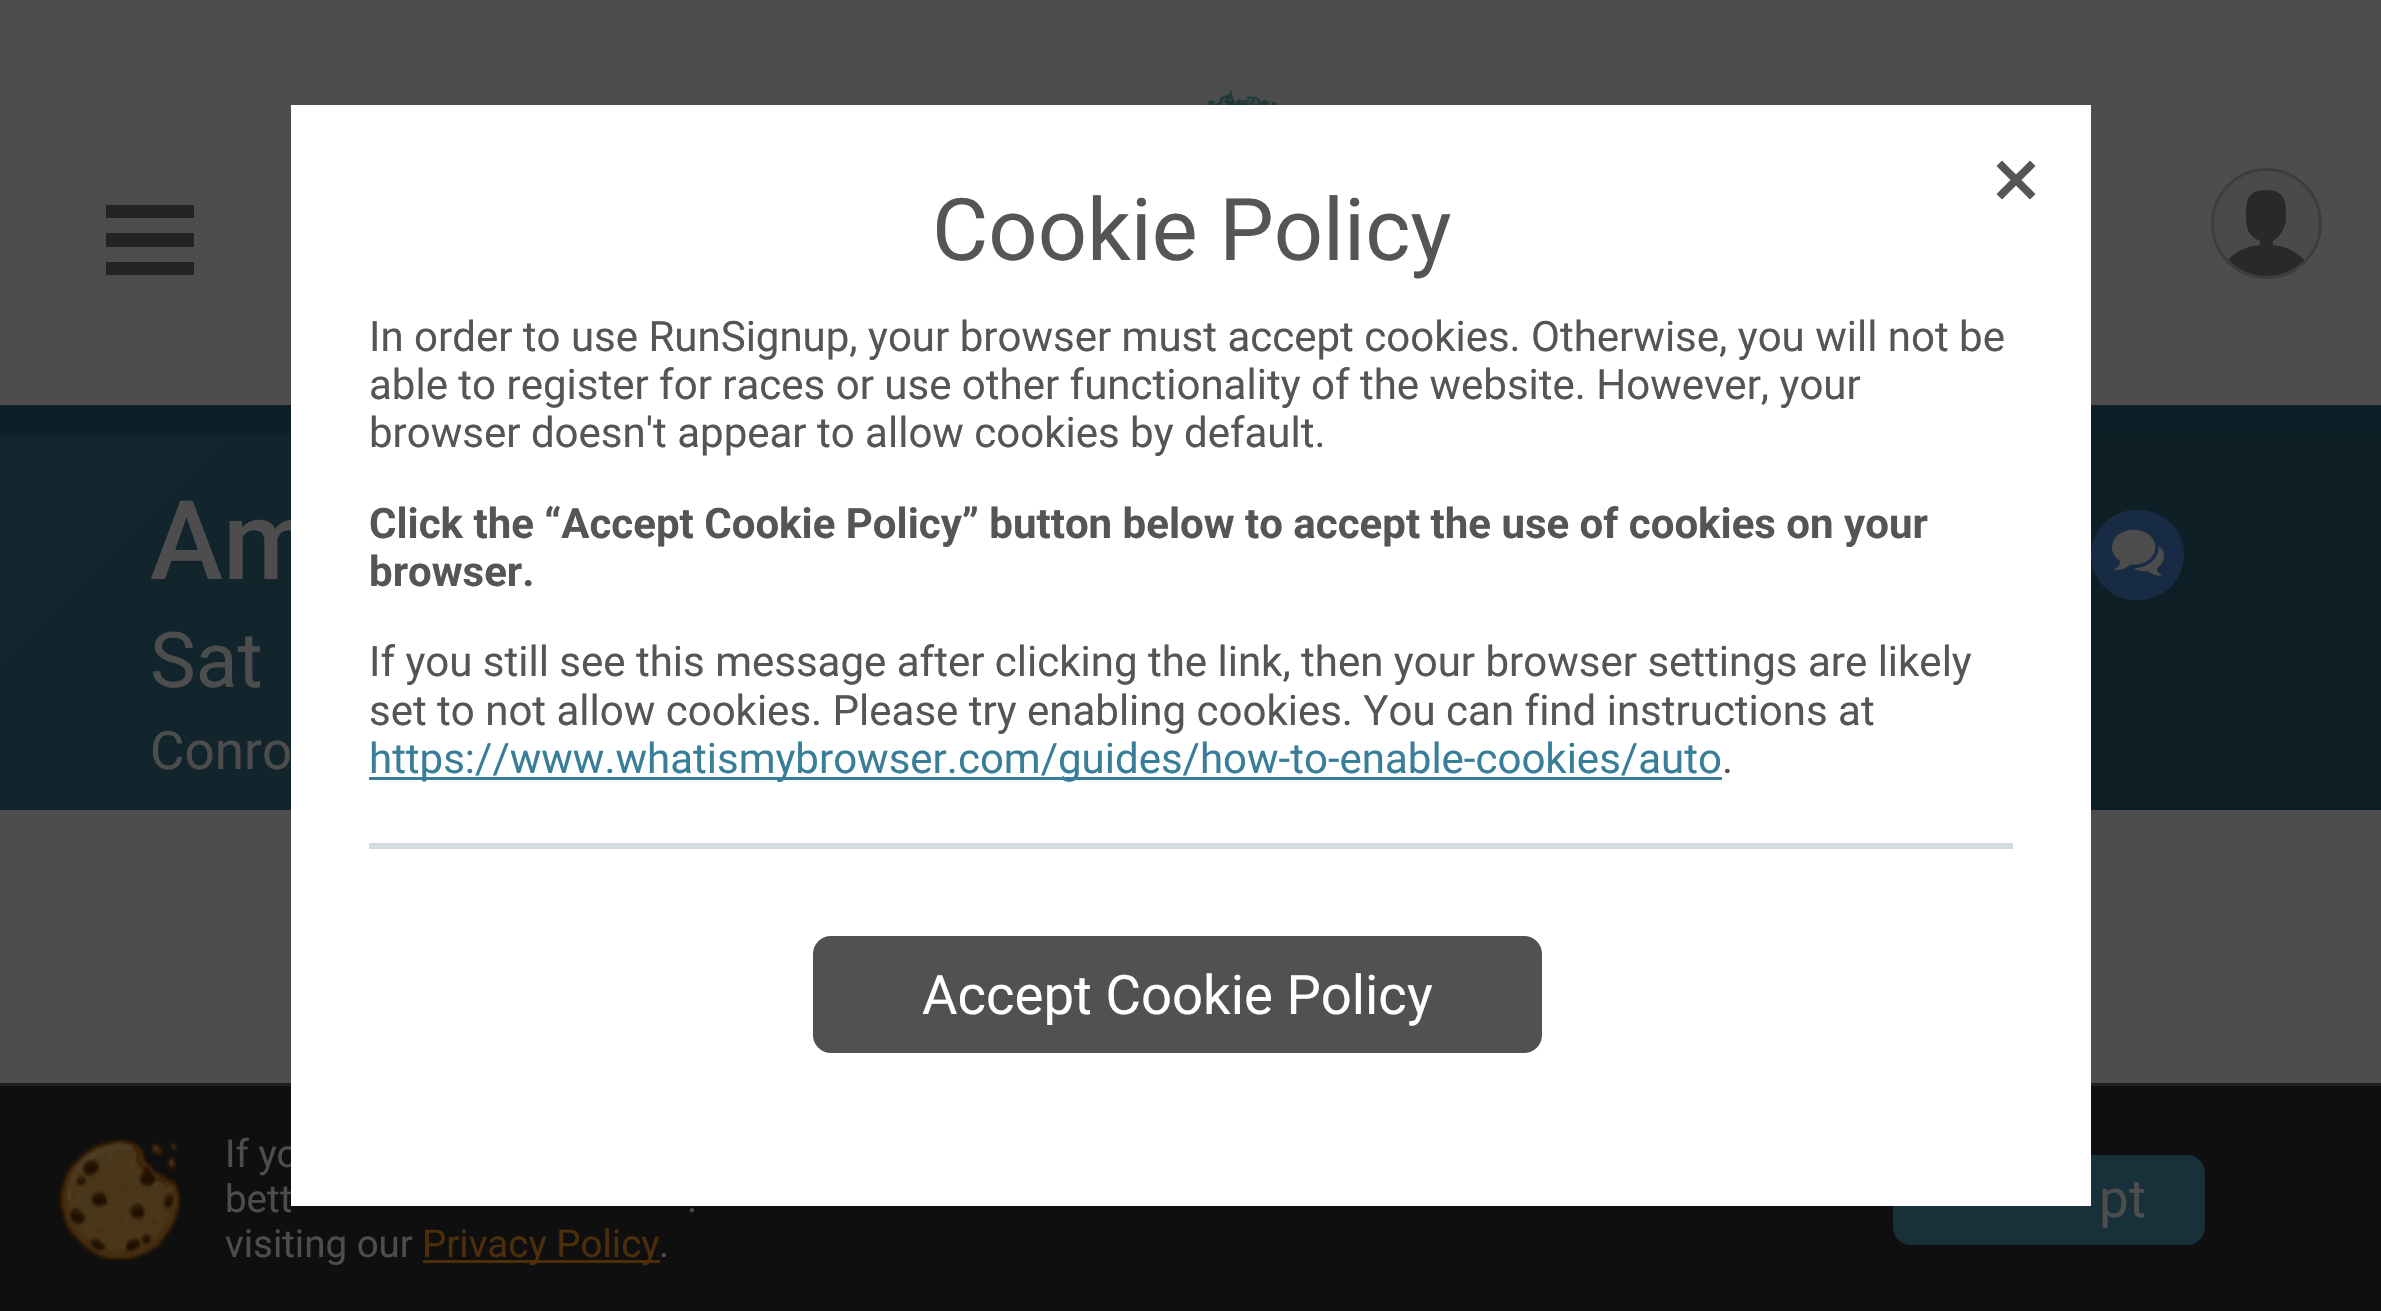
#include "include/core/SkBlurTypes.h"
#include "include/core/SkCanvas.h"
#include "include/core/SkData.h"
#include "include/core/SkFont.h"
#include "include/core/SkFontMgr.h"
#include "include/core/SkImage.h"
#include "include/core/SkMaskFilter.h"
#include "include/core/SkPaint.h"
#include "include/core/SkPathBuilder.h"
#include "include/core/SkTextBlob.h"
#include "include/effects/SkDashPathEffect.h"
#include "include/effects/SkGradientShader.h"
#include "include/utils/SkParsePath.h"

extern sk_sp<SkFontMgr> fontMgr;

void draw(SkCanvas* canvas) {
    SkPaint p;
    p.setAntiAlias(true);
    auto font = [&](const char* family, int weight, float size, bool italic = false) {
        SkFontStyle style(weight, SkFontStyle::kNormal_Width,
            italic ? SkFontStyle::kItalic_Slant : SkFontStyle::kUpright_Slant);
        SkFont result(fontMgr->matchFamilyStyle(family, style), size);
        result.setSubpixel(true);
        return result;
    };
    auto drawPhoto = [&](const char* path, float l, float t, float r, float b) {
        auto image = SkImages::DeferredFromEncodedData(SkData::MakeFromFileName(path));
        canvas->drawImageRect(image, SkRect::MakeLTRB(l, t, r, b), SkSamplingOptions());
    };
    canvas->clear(0xFF4D4D4D);
    drawPhoto("media/1.png", 1203, 90, 1279, 105);
    p.setColor(0xFF232323);
    canvas->drawPath(SkPathBuilder().moveTo(194, 205).lineTo(194, 218).lineTo(106, 218).lineTo(106, 205).close().moveTo(194, 233).lineTo(194, 247).lineTo(106, 247).lineTo(106, 233).close().moveTo(194, 262).lineTo(194, 275).lineTo(106, 275).lineTo(106, 262).close().detach(), p);
    canvas->save();
    canvas->clipPath(SkPathBuilder().moveTo(2266.5f, 168).cubicTo(2297, 168, 2322, 193, 2322, 223.5f).cubicTo(2322, 254, 2297, 279, 2266.5f, 279).cubicTo(2236, 279, 2211, 254, 2211, 223.5f).cubicTo(2211, 193, 2236, 168, 2266.5f, 168).close().detach(), true);
    p.setColor(0xFF4A4A4A);
    canvas->drawRect(SkRect::MakeLTRB(2214, 171, 2319, 276), p);
    canvas->restore();
    p.setColor(0xFF292929);
    canvas->drawPath(SkPathBuilder().moveTo(2273, 245).cubicTo(2287, 246, 2300, 254, 2306, 262).cubicTo(2300, 268, 2293, 273, 2285, 276).lineTo(2248, 276).cubicTo(2240, 273, 2232, 268, 2226, 262).cubicTo(2233, 253, 2245, 246, 2260, 245).lineTo(2260, 241).cubicTo(2252, 237, 2246, 233, 2246, 218).cubicTo(2246, 202, 2246, 190, 2266, 190).cubicTo(2286, 190, 2286, 202, 2286, 218).cubicTo(2286, 227, 2280, 237, 2273, 241).close().detach(), p);
    p.setStyle(SkPaint::kStroke_Style);
    p.setStrokeWidth(3);
    p.setColor(0xFF3D3D3D);
    canvas->drawCircle(2266.5f, 223.5f, 54, p);
    p.setStyle(SkPaint::kFill_Style);
    {
        const SkColor colors[] = {0xFF0D1D23, 0xFF13262E};
        const float stops[] = {0, 1};
        const SkPoint ends[] = {{1880, 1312}, {502, -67}};
        p.setShader(SkGradientShader::MakeLinear(ends, colors, stops, 2, SkTileMode::kClamp));
        p.setAlpha(255);
    }
    canvas->drawRect(SkRect::MakeLTRB(0, 435, 2381, 810), p);
    p.setShader(nullptr);
    p.setColor(0xFF0E2027);
    canvas->drawRect(SkRect::MakeLTRB(0, 405, 2381, 435), p);
    auto font1 = font("Roboto", 500, 110);
    p.setColor(0xFF4D4D4D);
    canvas->drawString("Am", 150, 579, font1, p);
    auto font2 = font("Roboto", 400, 77);
    canvas->drawString("Sat", 150, 687, font2, p);
    auto font3 = font("Roboto", 400, 53);
    canvas->drawString("Conro", 150, 769, font3, p);
    p.setColor(0xFF172C44);
    canvas->drawRoundRect(SkRect::MakeLTRB(2091, 510, 2184, 600), 45, 45, p);
    drawPhoto("media/2.png", 2112, 529, 2164, 576);
    p.setColor(0xFF0F0F0F);
    canvas->drawRect(SkRect::MakeLTRB(0, 1086, 2381, 1311), p);
    p.setColor(0xFF1F1F1F);
    canvas->drawRect(SkRect::MakeLTRB(0, 1083, 2381, 1086), p);
    auto font4 = font("Roboto", 400, 38.5f);
    p.setColor(0xFF4D4D4D);
    canvas->drawString("If yo", 225, 1167, font4, p);
    p.setColor(0xFF173039);
    canvas->drawRoundRect(SkRect::MakeLTRB(1893, 1155, 2205, 1245), 18, 18, p);
    p.setStyle(SkPaint::kStroke_Style);
    p.setColor(0xFFFFFFFF);
    canvas->drawRect(SkRect::MakeLTRB(292.5f, 106.5f, 2089.5f, 1204.5f), p);
    p.setStyle(SkPaint::kFill_Style);
    canvas->drawRect(SkRect::MakeLTRB(294, 108, 2088, 1203), p);
    p.setColor(0xFF555555);
    canvas->drawPath(SkPathBuilder().moveTo(1996.5f, 194).lineTo(2010.5f, 180).lineTo(1996.5f, 166).lineTo(2002, 160.5f).lineTo(2016, 174.5f).lineTo(2030, 160.5f).lineTo(2035.5f, 166).lineTo(2021.5f, 180).lineTo(2035.5f, 194).lineTo(2030, 199.5f).lineTo(2016, 185.5f).lineTo(2002, 199.5f).close().detach(), p);
    auto font5 = font("Roboto", 400, 86.5f);
    canvas->drawString("Cookie Policy", 932, 260, font5, p);
    auto font6 = font("Roboto", 400, 42);
    {
        const struct { const char* s; float x, y; } items[] = {
            {"In order to use RunSignup, your browser must accept cookies. Otherwise, you will not be", 369, 351},
            {"able to register for races or use other functionality of the website. However, your", 369, 399},
            {"browser doesn't appear to allow cookies by default.", 369, 447},
        };
        for (auto [s, x, y] : items) {
            canvas->drawString(s, x, y, font6, p);
        }
    }
    auto font7 = font("Roboto", 700, 42);
    canvas->drawString("Click the “Accept Cookie Policy” button below to accept the use of cookies on your", 369, 538, font7, p);
    canvas->drawString("browser.", 369, 586, font7, p);
    canvas->drawString("If you still see this message after clicking the link, then your browser settings are likely", 369, 676, font6, p);
    canvas->drawString("set to not allow cookies. Please try enabling cookies. You can find instructions at", 369, 725, font6, p);
    p.setColor(0xFF387E99);
    canvas->drawRect(SkRect::MakeLTRB(369, 777, 1722, 780), p);
    canvas->drawString("https://www.whatismybrowser.com/guides/how-to-enable-cookies/auto", 369, 773, font6, p);
    p.setColor(0xFF555555);
    canvas->drawString(".", 1722, 773, font6, p);
    p.setColor(0xFFD3DBDF);
    canvas->drawRect(SkRect::MakeLTRB(369, 843, 2013, 849), p);
    p.setColor(0xFF515151);
    canvas->drawRoundRect(SkRect::MakeLTRB(813, 936, 1542, 1053), 18, 18, p);
    auto font8 = font("Roboto", 400, 54.5f);
    p.setColor(0xFFFFFFFF);
    canvas->drawString("Accept Cookie Policy", 922, 1014, font8, p);
    drawPhoto("media/3.png", 60, 1138, 180, 1260);
    p.setColor(0xFF4D4D4D);
    {
        const struct { const char* s; float x, y; } items[] = {
            {"bett", 225, 1212},
            {".", 687, 1212},
            {"visiting our", 225, 1257},
        };
        for (auto [s, x, y] : items) {
            canvas->drawString(s, x, y, font4, p);
        }
    }
    p.setColor(0xFF4C2E0B);
    canvas->drawRect(SkRect::MakeLTRB(423, 1260, 660, 1263), p);
    canvas->drawString("Privacy Policy", 422, 1257, font4, p);
    p.setColor(0xFF4D4D4D);
    canvas->drawString(".", 659, 1257, font4, p);
    canvas->drawString("pt", 2099, 1217, font3, p);
}
